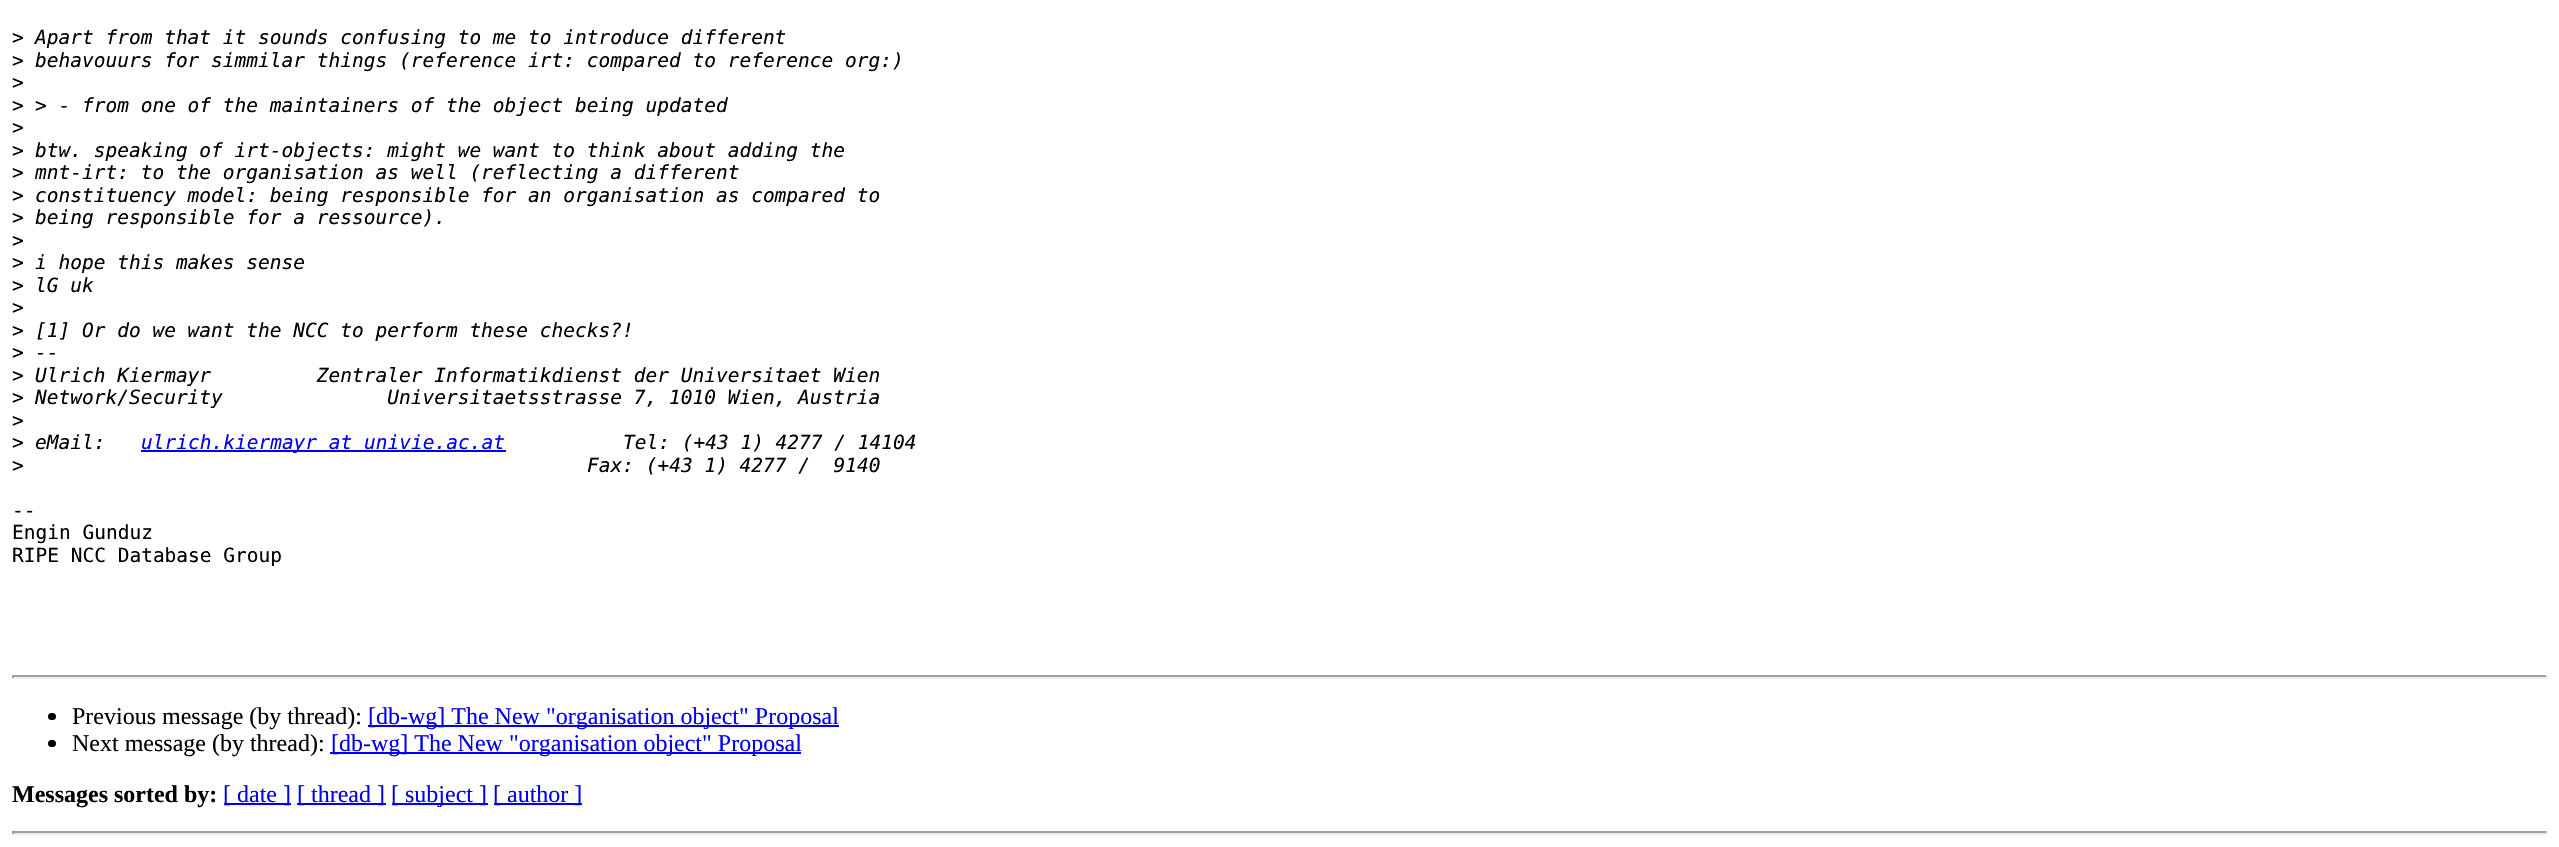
#include "include/core/SkBlurTypes.h"
#include "include/core/SkCanvas.h"
#include "include/core/SkData.h"
#include "include/core/SkFont.h"
#include "include/core/SkFontMgr.h"
#include "include/core/SkImage.h"
#include "include/core/SkMaskFilter.h"
#include "include/core/SkPaint.h"
#include "include/core/SkPathBuilder.h"
#include "include/core/SkTextBlob.h"
#include "include/effects/SkDashPathEffect.h"
#include "include/effects/SkGradientShader.h"
#include "include/utils/SkParsePath.h"

extern sk_sp<SkFontMgr> fontMgr;

void draw(SkCanvas* canvas) {
    SkPaint p;
    p.setAntiAlias(true);
    auto font = [&](const char* family, int weight, float size, bool italic = false) {
        SkFontStyle style(weight, SkFontStyle::kNormal_Width,
            italic ? SkFontStyle::kItalic_Slant : SkFontStyle::kUpright_Slant);
        SkFont result(fontMgr->matchFamilyStyle(family, style), size);
        result.setSubpixel(true);
        return result;
    };
    canvas->clear(0xFFFFFFFF);
    auto font1 = font("DejaVu Sans Mono", 400, 19.5f);
    p.setColor(0xFF000000);
    canvas->drawString(">", 12, 44, font1, p);
    auto font2 = font("DejaVu Sans Mono", 400, 19.5f, true);
    canvas->drawString("Apart from that it sounds confusing to me to introduce different", 35, 44, font2, p);
    canvas->drawString(">", 12, 67, font1, p);
    canvas->drawString("behavouurs for simmilar things (reference irt: compared to reference org:)", 35, 67, font2, p);
    canvas->drawString(">", 12, 89, font1, p);
    canvas->drawString(">", 12, 112, font1, p);
    canvas->drawString("> - from one of the maintainers of the object being updated", 35, 112, font2, p);
    canvas->drawString(">", 12, 134, font1, p);
    canvas->drawString(">", 12, 157, font1, p);
    canvas->drawString("btw. speaking of irt-objects: might we want to think about adding the", 35, 157, font2, p);
    canvas->drawString(">", 12, 179, font1, p);
    canvas->drawString("mnt-irt: to the organisation as well (reflecting a different", 35, 179, font2, p);
    canvas->drawString(">", 12, 202, font1, p);
    canvas->drawString("constituency model: being responsible for an organisation as compared to", 35, 202, font2, p);
    canvas->drawString(">", 12, 224, font1, p);
    canvas->drawString("being responsible for a ressource).", 35, 224, font2, p);
    canvas->drawString(">", 12, 247, font1, p);
    canvas->drawString(">", 12, 269, font1, p);
    canvas->drawString("i hope this makes sense", 35, 269, font2, p);
    canvas->drawString(">", 12, 292, font1, p);
    canvas->drawString("lG uk", 35, 292, font2, p);
    canvas->drawString(">", 12, 314, font1, p);
    canvas->drawString(">", 12, 337, font1, p);
    canvas->drawString("[1] Or do we want the NCC to perform these checks?!", 35, 337, font2, p);
    canvas->drawString(">", 12, 359, font1, p);
    canvas->drawString("--", 35, 359, font2, p);
    canvas->drawString(">", 12, 382, font1, p);
    canvas->drawString("Ulrich Kiermayr         Zentraler Informatikdienst der Universitaet Wien", 35, 382, font2, p);
    canvas->drawString(">", 12, 404, font1, p);
    canvas->drawString("Network/Security              Universitaetsstrasse 7, 1010 Wien, Austria", 35, 404, font2, p);
    canvas->drawString(">", 12, 427, font1, p);
    canvas->drawString(">", 12, 449, font1, p);
    canvas->drawString("eMail:", 35, 449, font2, p);
    p.setColor(0xFF0000EE);
    canvas->drawRect(SkRect::MakeLTRB(141, 450, 506, 452), p);
    canvas->drawString("ulrich.kiermayr at univie.ac.at", 141, 449, font2, p);
    p.setColor(0xFF000000);
    canvas->drawString("Tel: (+43 1) 4277 / 14104", 623, 449, font2, p);
    canvas->drawString(">", 12, 472, font1, p);
    canvas->drawString("Fax: (+43 1) 4277 /  9140", 587, 472, font2, p);
    {
        const struct { const char* s; float x, y; } items[] = {
            {"--", 12, 517},
            {"Engin Gunduz", 12, 539},
            {"RIPE NCC Database Group", 12, 562},
        };
        for (auto [s, x, y] : items) {
            canvas->drawString(s, x, y, font1, p);
        }
    }
    {
        const struct { float l, t, r, b; SkColor color; } items[] = {
            {12, 675, 2547, 677, 0xFF9F9F9F},
            {2546, 675, 2548, 678, 0xFFEEEEEE},
            {12, 677, 2547, 679, 0xFFEEEEEE},
            {12, 675, 14, 678, 0xFF9F9F9F},
        };
        for (auto [l, t, r, b, color] : items) {
            p.setColor(color);
            canvas->drawRect(SkRect::MakeLTRB(l, t, r, b), p);
        }
    }
    p.setColor(0xFF000000);
    canvas->drawRoundRect(SkRect::MakeLTRB(48, 713, 56, 720), 3.5f, 3.5f, p);
    auto font3 = font("Liberation Serif", 400, 24);
    canvas->drawString("Previous message (by thread):", 72, 724, font3, p);
    p.setColor(0xFF0000EE);
    canvas->drawRect(SkRect::MakeLTRB(368, 725, 839, 727), p);
    canvas->drawString("[db-wg] The New \"organisation object\" Proposal", 368, 724, font3, p);
    p.setColor(0xFF000000);
    canvas->drawRoundRect(SkRect::MakeLTRB(48, 740, 56, 747), 3.5f, 3.5f, p);
    canvas->drawString("Next message (by thread):", 72, 751, font3, p);
    p.setColor(0xFF0000EE);
    canvas->drawRect(SkRect::MakeLTRB(330, 752, 801, 754), p);
    canvas->drawString("[db-wg] The New \"organisation object\" Proposal", 331, 751, font3, p);
    auto font4 = font("Liberation Serif", 700, 24);
    p.setColor(0xFF000000);
    canvas->drawString("Messages sorted by:", 12, 802, font4, p);
    p.setColor(0xFF0000EE);
    canvas->drawRect(SkRect::MakeLTRB(224, 803, 291, 805), p);
    canvas->drawString("[ date ]", 223, 802, font3, p);
    canvas->drawRect(SkRect::MakeLTRB(297, 803, 386, 805), p);
    canvas->drawString("[ thread ]", 297, 802, font3, p);
    canvas->drawRect(SkRect::MakeLTRB(392, 803, 488, 805), p);
    canvas->drawString("[ subject ]", 391, 802, font3, p);
    canvas->drawRect(SkRect::MakeLTRB(494, 803, 582, 805), p);
    canvas->drawString("[ author ]", 493, 802, font3, p);
    {
        const struct { float l, t, r, b; SkColor color; } items[] = {
            {12, 831, 2547, 833, 0xFF9F9F9F},
            {2546, 831, 2548, 834, 0xFFEEEEEE},
            {12, 833, 2547, 835, 0xFFEEEEEE},
            {12, 831, 14, 834, 0xFF9F9F9F},
        };
        for (auto [l, t, r, b, color] : items) {
            p.setColor(color);
            canvas->drawRect(SkRect::MakeLTRB(l, t, r, b), p);
        }
    }
}
